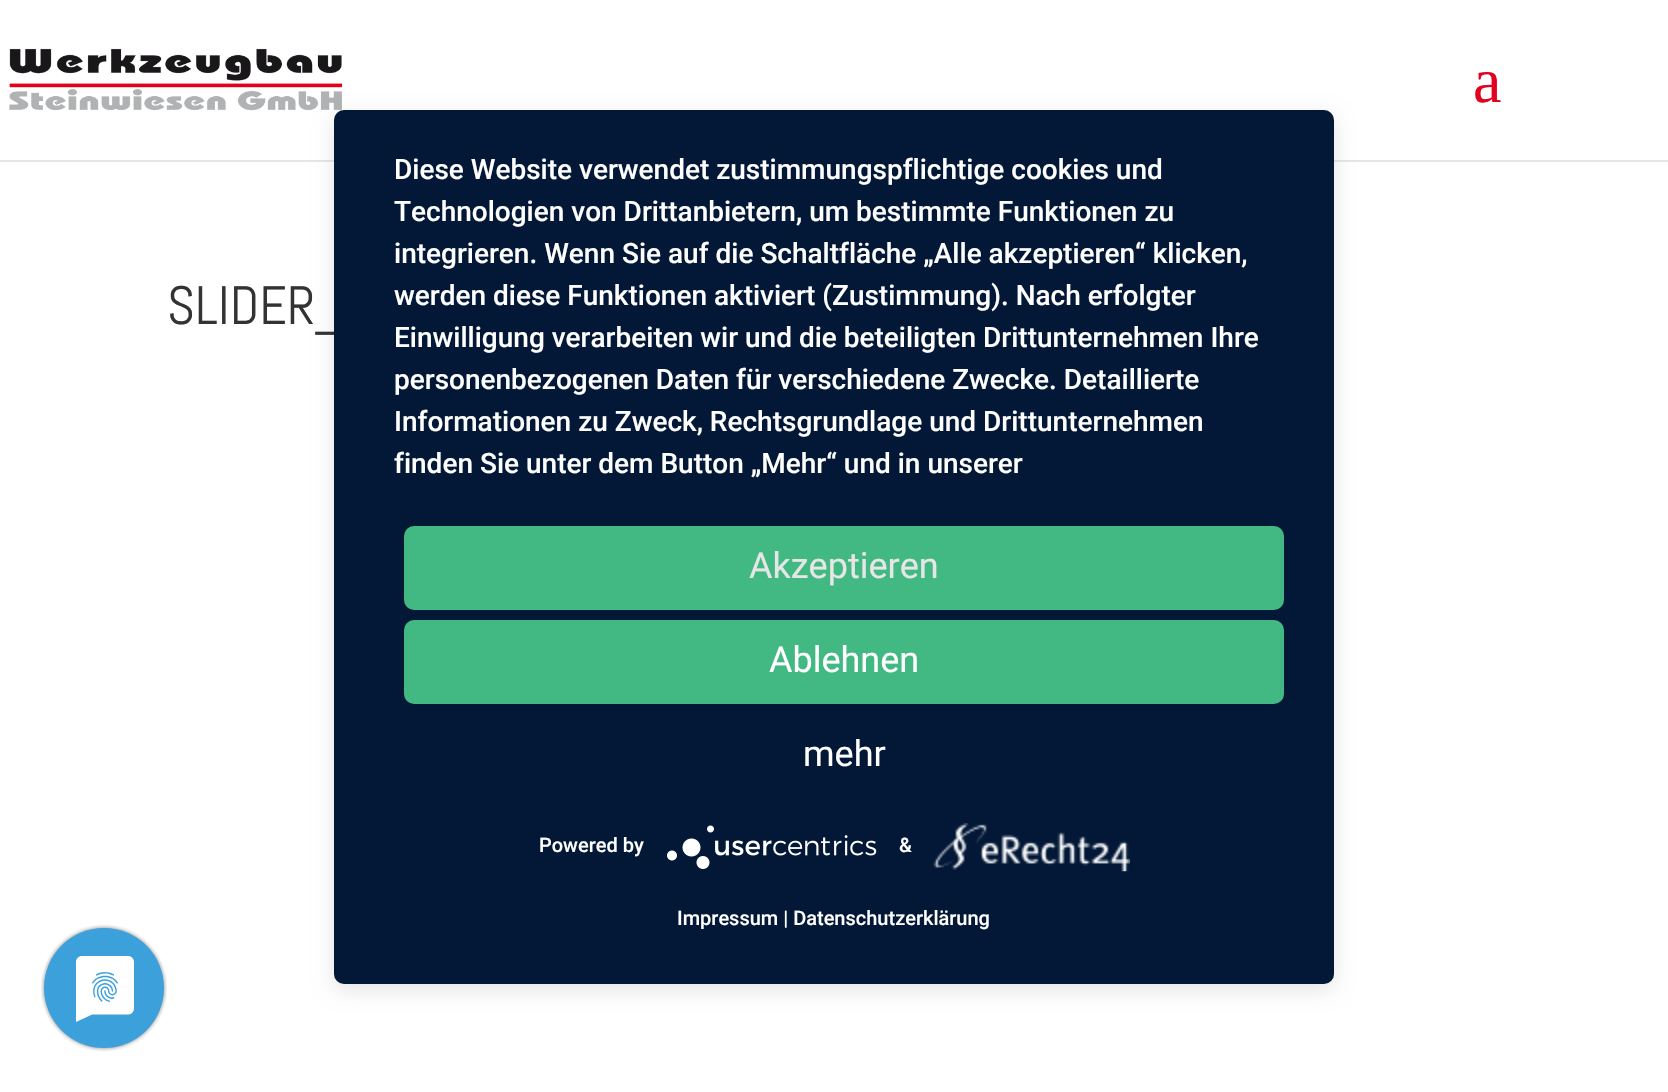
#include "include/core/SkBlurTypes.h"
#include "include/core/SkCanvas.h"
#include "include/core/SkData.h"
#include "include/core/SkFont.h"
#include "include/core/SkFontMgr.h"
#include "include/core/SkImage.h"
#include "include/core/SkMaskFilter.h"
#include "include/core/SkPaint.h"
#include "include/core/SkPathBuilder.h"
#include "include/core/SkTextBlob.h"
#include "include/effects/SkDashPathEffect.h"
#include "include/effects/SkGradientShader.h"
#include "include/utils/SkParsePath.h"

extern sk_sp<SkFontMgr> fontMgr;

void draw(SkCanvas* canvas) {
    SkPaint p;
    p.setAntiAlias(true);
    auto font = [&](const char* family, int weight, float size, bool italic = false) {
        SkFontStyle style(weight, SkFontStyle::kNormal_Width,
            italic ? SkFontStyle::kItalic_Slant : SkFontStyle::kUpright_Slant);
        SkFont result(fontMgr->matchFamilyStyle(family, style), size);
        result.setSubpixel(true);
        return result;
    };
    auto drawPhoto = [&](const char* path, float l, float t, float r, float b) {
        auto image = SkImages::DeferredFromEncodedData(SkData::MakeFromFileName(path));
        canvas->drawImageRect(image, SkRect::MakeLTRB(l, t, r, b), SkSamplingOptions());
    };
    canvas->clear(0xFFFFFFFF);
    p.setColor(0xFFE6E6E6);
    canvas->drawRect(SkRect::MakeLTRB(0, 160, 1668, 162), p);
    drawPhoto("media/1.png", 9, 48, 342, 111);
    auto font1 = font("Liberation Serif", 400, 64);
    p.setColor(0xFFE20020);
    canvas->drawString("a", 1473, 102, font1, p);
    auto font2 = font("Abel", 400, 54);
    p.setColor(0xFF333333);
    canvas->drawString("SLIDER_", 167, 324, font2, p);
    p.setColor(0x1A000000);
    p.setMaskFilter(SkMaskFilter::MakeBlur(kNormal_SkBlurStyle, 10));
    canvas->drawRoundRect(SkRect::MakeLTRB(334, 116, 1334, 990), 10, 10, p);
    p.setMaskFilter(nullptr);
    canvas->save();
    canvas->clipPath(SkPathBuilder().moveTo(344, 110).lineTo(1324, 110).cubicTo(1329.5f, 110, 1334, 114.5f, 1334, 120).lineTo(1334, 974).cubicTo(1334, 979.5f, 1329.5f, 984, 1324, 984).lineTo(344, 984).cubicTo(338.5f, 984, 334, 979.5f, 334, 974).lineTo(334, 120).cubicTo(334, 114.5f, 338.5f, 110, 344, 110).close().detach(), true);
    p.setColor(0x4D000000);
    p.setMaskFilter(SkMaskFilter::MakeBlur(kNormal_SkBlurStyle, 36));
    canvas->drawRect(SkRect::MakeLTRB(334, 122, 1334, 996), p);
    p.setMaskFilter(nullptr);
    canvas->restore();
    p.setColor(0xFF021836);
    canvas->drawRoundRect(SkRect::MakeLTRB(334, 110, 1334, 984), 10, 10, p);
    auto font3 = font("Roboto", 500, 28);
    p.setColor(0xFFFFFFFF);
    {
        const struct { const char* s; float x, y; } items[] = {
            {"Diese Website verwendet zustimmungspflichtige cookies und", 394, 179},
            {"Technologien von Drittanbietern, um bestimmte Funktionen zu", 394, 221},
            {"integrieren. Wenn Sie auf die Schaltfläche „Alle akzeptieren“ klicken,", 394, 263},
            {"werden diese Funktionen aktiviert (Zustimmung). Nach erfolgter", 394, 305},
            {"Einwilligung verarbeiten wir und die beteiligten Drittunternehmen Ihre", 394, 347},
            {"personenbezogenen Daten für verschiedene Zwecke. Detaillierte", 394, 389},
            {"Informationen zu Zweck, Rechtsgrundlage und Drittunternehmen", 394, 431},
            {"finden Sie unter dem Button „Mehr“ und in unserer", 394, 473},
        };
        for (auto [s, x, y] : items) {
            canvas->drawString(s, x, y, font3, p);
        }
    }
    p.setColor(0xFF42B983);
    canvas->drawRoundRect(SkRect::MakeLTRB(404, 526, 1284, 610), 10, 10, p);
    auto font4 = font("Roboto", 400, 36);
    p.setColor(0xFFE6E6E6);
    canvas->drawString("Akzeptieren", 749, 578, font4, p);
    p.setColor(0xFF42B983);
    canvas->drawRoundRect(SkRect::MakeLTRB(404, 620, 1284, 704), 10, 10, p);
    p.setColor(0xFFFFFFFF);
    canvas->drawString("Ablehnen", 769, 672, font4, p);
    canvas->drawString("mehr", 803, 766, font4, p);
    auto font5 = font("Roboto", 500, 20);
    canvas->drawString("Powered by", 539, 852, font5, p);
    drawPhoto("media/2.png", 667, 825, 877, 869);
    canvas->drawString("&", 899, 852, font5, p);
    drawPhoto("media/3.png", 933, 823, 1130, 872);
    canvas->drawString("Impressum | Datenschutzerklärung", 677, 925, font5, p);
    drawPhoto("media/4.png", 41, 924, 167, 1052);
}
